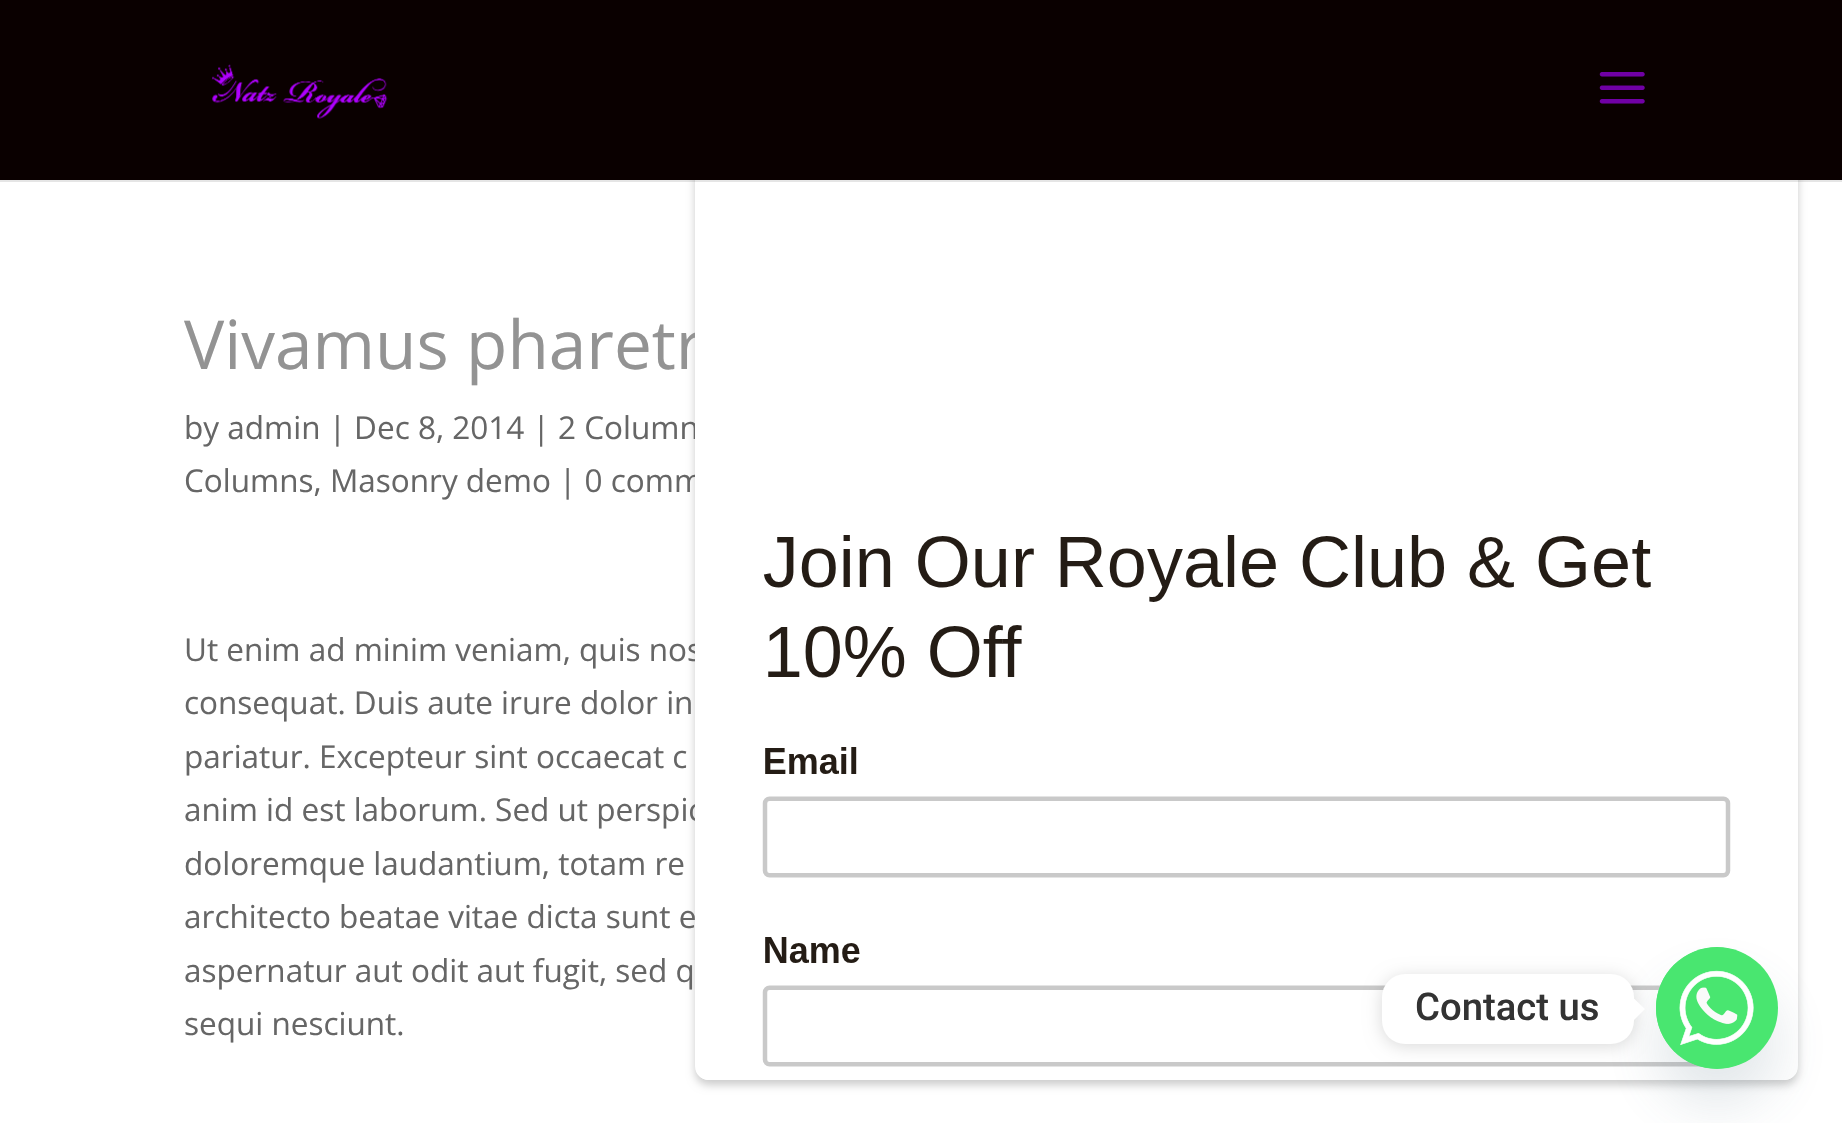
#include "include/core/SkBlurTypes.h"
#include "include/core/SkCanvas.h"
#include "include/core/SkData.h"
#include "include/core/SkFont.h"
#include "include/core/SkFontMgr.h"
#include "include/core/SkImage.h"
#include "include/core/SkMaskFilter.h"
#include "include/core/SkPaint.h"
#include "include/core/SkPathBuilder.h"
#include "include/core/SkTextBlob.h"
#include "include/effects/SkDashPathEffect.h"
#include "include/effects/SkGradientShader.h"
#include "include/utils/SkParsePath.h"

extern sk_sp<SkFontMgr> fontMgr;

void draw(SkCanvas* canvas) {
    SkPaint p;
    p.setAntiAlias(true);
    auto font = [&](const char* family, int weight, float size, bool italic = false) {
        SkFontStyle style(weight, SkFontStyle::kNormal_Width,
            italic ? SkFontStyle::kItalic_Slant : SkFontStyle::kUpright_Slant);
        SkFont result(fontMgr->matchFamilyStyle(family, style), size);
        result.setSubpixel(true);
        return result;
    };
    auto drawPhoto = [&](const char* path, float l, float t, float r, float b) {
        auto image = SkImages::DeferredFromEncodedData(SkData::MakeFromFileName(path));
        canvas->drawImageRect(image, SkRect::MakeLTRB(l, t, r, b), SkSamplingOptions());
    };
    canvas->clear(0xFFFFFFFF);
    p.setColor(0x33000000);
    p.setMaskFilter(SkMaskFilter::MakeBlur(kNormal_SkBlurStyle, 4.5f));
    canvas->drawRoundRect(SkRect::MakeLTRB(695, 5, 1798, 1085), 14, 14, p);
    p.setMaskFilter(nullptr);
    auto font1 = font("Open Sans", 400, 67.5f);
    p.setColor(0xFF939393);
    canvas->drawString("Vivamus pharetr", 184, 369, font1, p);
    auto font2 = font("Open Sans", 400, 31.5f);
    p.setColor(0xFF666666);
    {
        const struct { const char* s; float x, y; } items[] = {
            {"by admin | Dec 8, 2014 | 2 Column", 184, 439},
            {"Columns, Masonry demo | 0 comm", 184, 492},
            {"Ut enim ad minim veniam, quis nos", 184, 661},
            {"anim id est laborum. Sed ut perspic", 184, 821},
            {"architecto beatae vitae dicta sunt e", 184, 928},
        };
        for (auto [s, x, y] : items) {
            canvas->drawString(s, x, y, font2, p);
        }
    }
    p.setColor(0xFFFFFFFF);
    canvas->drawRoundRect(SkRect::MakeLTRB(695, 0, 1798, 1080), 14, 14, p);
    p.setColor(0x1A000000);
    canvas->drawPath(SkPathBuilder().moveTo(0, 180).lineTo(0, 182).lineTo(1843, 182).lineTo(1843, 2).lineTo(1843, 180).close().detach(), p);
    p.setColor(0xFF0A0000);
    canvas->drawRect(SkRect::MakeLTRB(0, 0, 1842, 180), p);
    drawPhoto("media/1.png", 212, 64, 388, 119);
    drawPhoto("media/2.png", 1599, 72, 1645, 104);
    p.setColor(0xFF666666);
    {
        const struct { const char* s; float x, y; } items[] = {
            {"consequat. Duis aute irure dolor in", 184, 714},
            {"pariatur. Excepteur sint occaecat c", 184, 768},
            {"doloremque laudantium, totam re", 184, 875},
            {"aspernatur aut odit aut fugit, sed q", 184, 982},
            {"sequi nesciunt.", 184, 1035},
        };
        for (auto [s, x, y] : items) {
            canvas->drawString(s, x, y, font2, p);
        }
    }
    drawPhoto("media/3.png", 696, 535, 1797, 1080);
    p.setColor(0x2949687E);
    p.setMaskFilter(SkMaskFilter::MakeBlur(kNormal_SkBlurStyle, 27));
    canvas->drawRoundRect(SkRect::MakeLTRB(1656, 983, 1778, 1105), 61, 61, p);
    p.setMaskFilter(nullptr);
    p.setColor(0xFF49E670);
    canvas->drawCircle(1717, 1008, 61, p);
    drawPhoto("media/4.png", 1656, 947, 1754, 1069);
    p.setColor(0x26000000);
    p.setMaskFilter(SkMaskFilter::MakeBlur(kNormal_SkBlurStyle, 8.5f));
    canvas->drawRoundRect(SkRect::MakeLTRB(1382, 977, 1634, 1046), 23, 23, p);
    p.setMaskFilter(nullptr);
    p.setColor(0xFFFFFFFF);
    canvas->drawRoundRect(SkRect::MakeLTRB(1382, 974, 1634, 1044), 23, 23, p);
    auto font3 = font("Roboto", 500, 38.25f);
    p.setColor(0xFF333333);
    canvas->drawString("Contact us", 1415, 1020, font3, p);
    p.setColor(0xFFFFFFFF);
    canvas->drawPath(SkPathBuilder().moveTo(1633.5f, 1020.5f).lineTo(1633.5f, 998).lineTo(1645, 1009).close().detach(), p);
}
